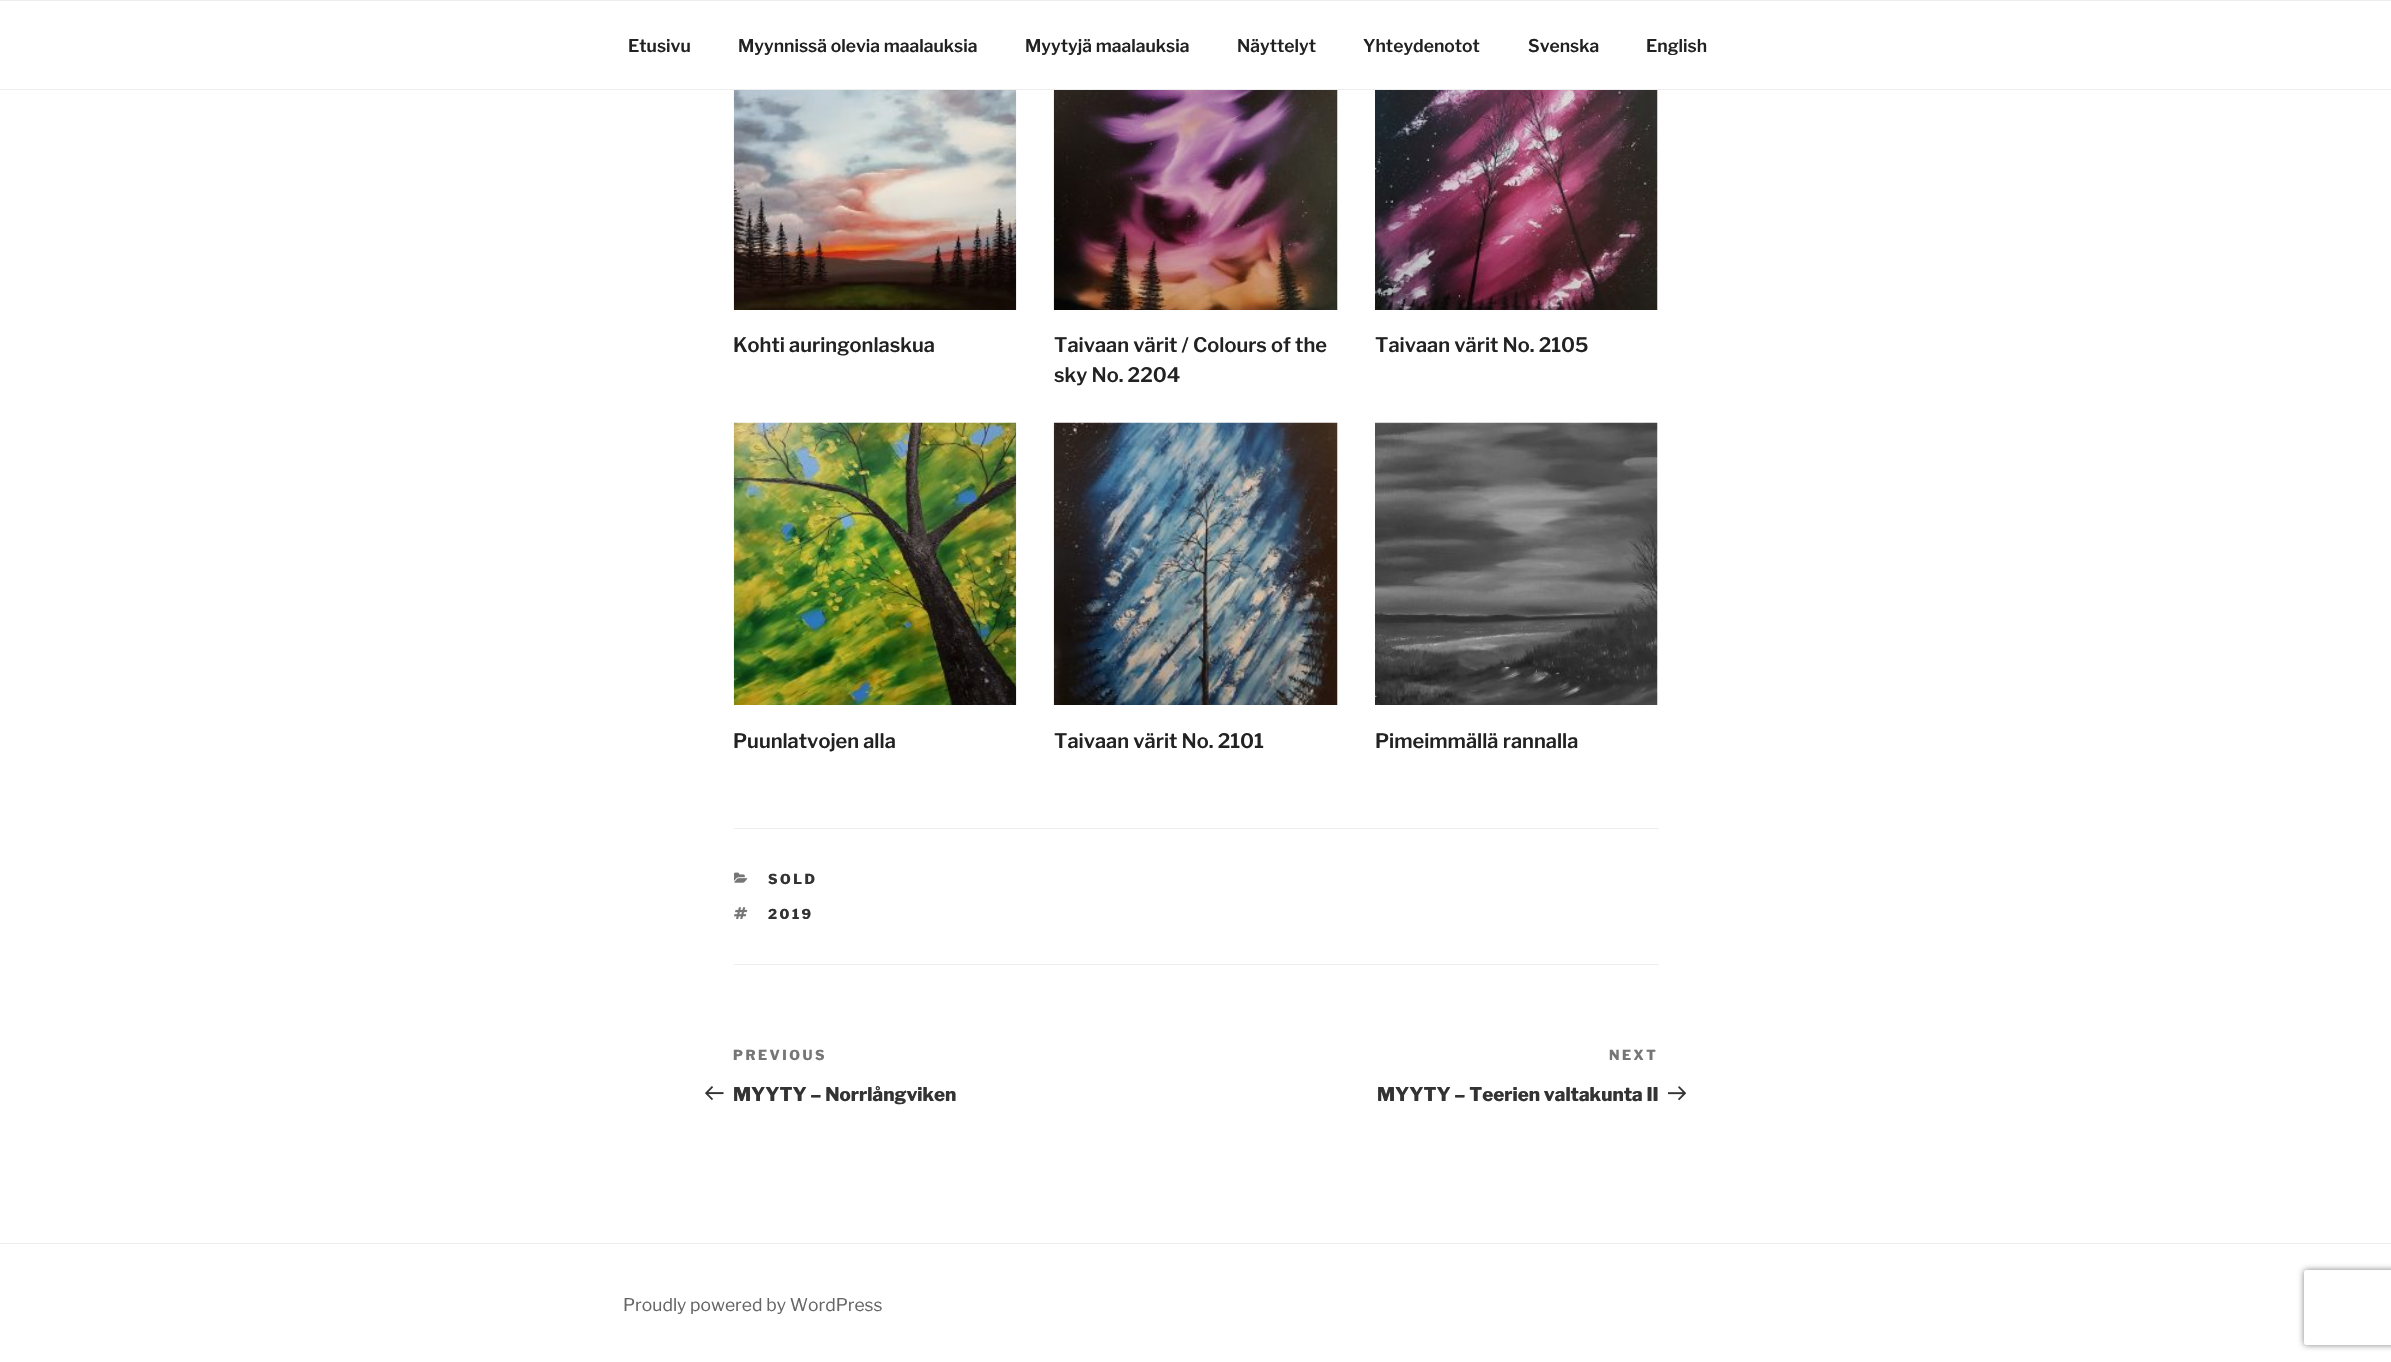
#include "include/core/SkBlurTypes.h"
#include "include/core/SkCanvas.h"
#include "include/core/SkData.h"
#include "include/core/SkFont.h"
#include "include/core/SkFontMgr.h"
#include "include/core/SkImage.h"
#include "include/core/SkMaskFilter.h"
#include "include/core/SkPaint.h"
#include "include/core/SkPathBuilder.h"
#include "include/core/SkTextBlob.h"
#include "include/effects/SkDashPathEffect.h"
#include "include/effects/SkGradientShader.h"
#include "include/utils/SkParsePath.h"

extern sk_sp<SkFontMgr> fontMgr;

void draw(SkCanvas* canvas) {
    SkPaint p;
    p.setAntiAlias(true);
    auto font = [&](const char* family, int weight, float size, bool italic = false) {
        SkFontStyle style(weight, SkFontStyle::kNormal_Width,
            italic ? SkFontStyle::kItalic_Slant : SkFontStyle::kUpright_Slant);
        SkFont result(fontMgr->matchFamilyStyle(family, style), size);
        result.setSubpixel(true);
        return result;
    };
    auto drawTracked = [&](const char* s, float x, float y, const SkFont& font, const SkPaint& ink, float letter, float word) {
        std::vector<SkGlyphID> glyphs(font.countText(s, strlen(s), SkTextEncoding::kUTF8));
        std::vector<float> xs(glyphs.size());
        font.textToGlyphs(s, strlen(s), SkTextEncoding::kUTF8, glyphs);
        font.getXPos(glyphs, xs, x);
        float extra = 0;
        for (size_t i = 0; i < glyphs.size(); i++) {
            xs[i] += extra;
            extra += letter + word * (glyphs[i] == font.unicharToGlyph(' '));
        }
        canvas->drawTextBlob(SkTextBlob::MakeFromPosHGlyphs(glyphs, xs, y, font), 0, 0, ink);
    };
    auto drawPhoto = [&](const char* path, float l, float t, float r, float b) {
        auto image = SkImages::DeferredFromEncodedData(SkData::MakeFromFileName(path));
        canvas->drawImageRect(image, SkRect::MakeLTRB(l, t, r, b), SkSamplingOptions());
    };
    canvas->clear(0xFFFFFFFF);
    p.setColor(0xFFEEEEEE);
    canvas->drawRect(SkRect::MakeLTRB(0, 0, 2391, 1), p);
    canvas->drawRect(SkRect::MakeLTRB(0, 89, 2391, 90), p);
    auto font1 = font("Libre Franklin", 600, 17.5f);
    p.setColor(0xFF222222);
    {
        const struct { const char* s; float x, y; } items[] = {
            {"Etusivu", 628, 52},
            {"Myynnissä olevia maalauksia", 738, 52},
            {"Myytyjä maalauksia", 1025, 52},
            {"Näyttelyt", 1237, 52},
            {"Yhteydenotot", 1363, 52},
            {"Svenska", 1528, 52},
            {"English", 1646, 52},
        };
        for (auto [s, x, y] : items) {
            canvas->drawString(s, x, y, font1, p);
        }
    }
    drawPhoto("media/1.png", 733, 90, 1017, 310);
    auto font2 = font("Libre Franklin", 600, 20);
    canvas->drawString("Kohti auringonlaskua", 733, 352, font2, p);
    drawPhoto("media/2.png", 1053, 90, 1338, 310);
    canvas->drawString("Taivaan värit / Colours of the", 1054, 352, font2, p);
    canvas->drawString("sky No. 2204", 1054, 382, font2, p);
    drawPhoto("media/3.png", 1375, 90, 1658, 310);
    canvas->drawString("Taivaan värit No. 2105", 1375, 352, font2, p);
    drawPhoto("media/4.png", 733, 422, 1017, 705);
    canvas->drawString("Puunlatvojen alla", 733, 748, font2, p);
    drawPhoto("media/5.png", 1053, 422, 1338, 705);
    canvas->drawString("Taivaan värit No. 2101", 1054, 748, font2, p);
    drawPhoto("media/6.png", 1375, 422, 1658, 705);
    canvas->drawString("Pimeimmällä rannalla", 1375, 748, font2, p);
    p.setColor(0xFFEEEEEE);
    canvas->drawRect(SkRect::MakeLTRB(734, 828, 1659, 829), p);
    canvas->drawRect(SkRect::MakeLTRB(734, 964, 1659, 965), p);
    drawPhoto("media/7.png", 734, 872, 748, 883);
    auto font3 = font("Libre Franklin", 800, 13.75f);
    p.setColor(0xFF333333);
    drawTracked("SOLD", 768, 884, font3, p, 2.5f, 0);
    drawPhoto("media/8.png", 734, 907, 748, 919);
    drawTracked("2019", 768, 919, font3, p, 2.5f, 0);
    p.setColor(0xFF767676);
    drawTracked("PREVIOUS", 733, 1060, font3, p, 2.5f, 0);
    drawPhoto("media/9.png", 705, 1086, 724, 1100);
    auto font4 = font("Libre Franklin", 800, 18.75f);
    p.setColor(0xFF333333);
    canvas->drawString("MYYTY – Norrlångviken", 733, 1101, font4, p);
    p.setColor(0xFF767676);
    drawTracked("NEXT", 1609, 1060, font3, p, 2.5f, 0);
    p.setColor(0xFF333333);
    canvas->drawString("MYYTY – Teerien valtakunta II", 1377, 1101, font4, p);
    drawPhoto("media/10.png", 1668, 1086, 1686, 1101);
    p.setColor(0xFFEEEEEE);
    canvas->drawRect(SkRect::MakeLTRB(0, 1243, 2391, 1244), p);
    auto font5 = font("Libre Franklin", 400, 17.5f);
    p.setColor(0xFF666666);
    canvas->drawString("Proudly powered by WordPress", 623, 1311, font5, p);
    canvas->save();
    canvas->clipPath(SkPathBuilder(SkPathFillType::kEvenOdd).moveTo(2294, 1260).lineTo(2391, 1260).lineTo(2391, 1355).lineTo(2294, 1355).close().moveTo(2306.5f, 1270).lineTo(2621.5f, 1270).cubicTo(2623, 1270, 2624, 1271, 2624, 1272.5f).lineTo(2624, 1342.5f).cubicTo(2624, 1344, 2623, 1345, 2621.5f, 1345).lineTo(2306.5f, 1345).cubicTo(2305, 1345, 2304, 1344, 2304, 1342.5f).lineTo(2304, 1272.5f).cubicTo(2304, 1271, 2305, 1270, 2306.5f, 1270).close().detach(), true);
    p.setColor(0xFF808080);
    p.setMaskFilter(SkMaskFilter::MakeBlur(kNormal_SkBlurStyle, 3));
    canvas->drawRoundRect(SkRect::MakeLTRB(2304, 1270, 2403, 1345), 2.5f, 2.5f, p);
    p.setMaskFilter(nullptr);
    canvas->restore();
}
